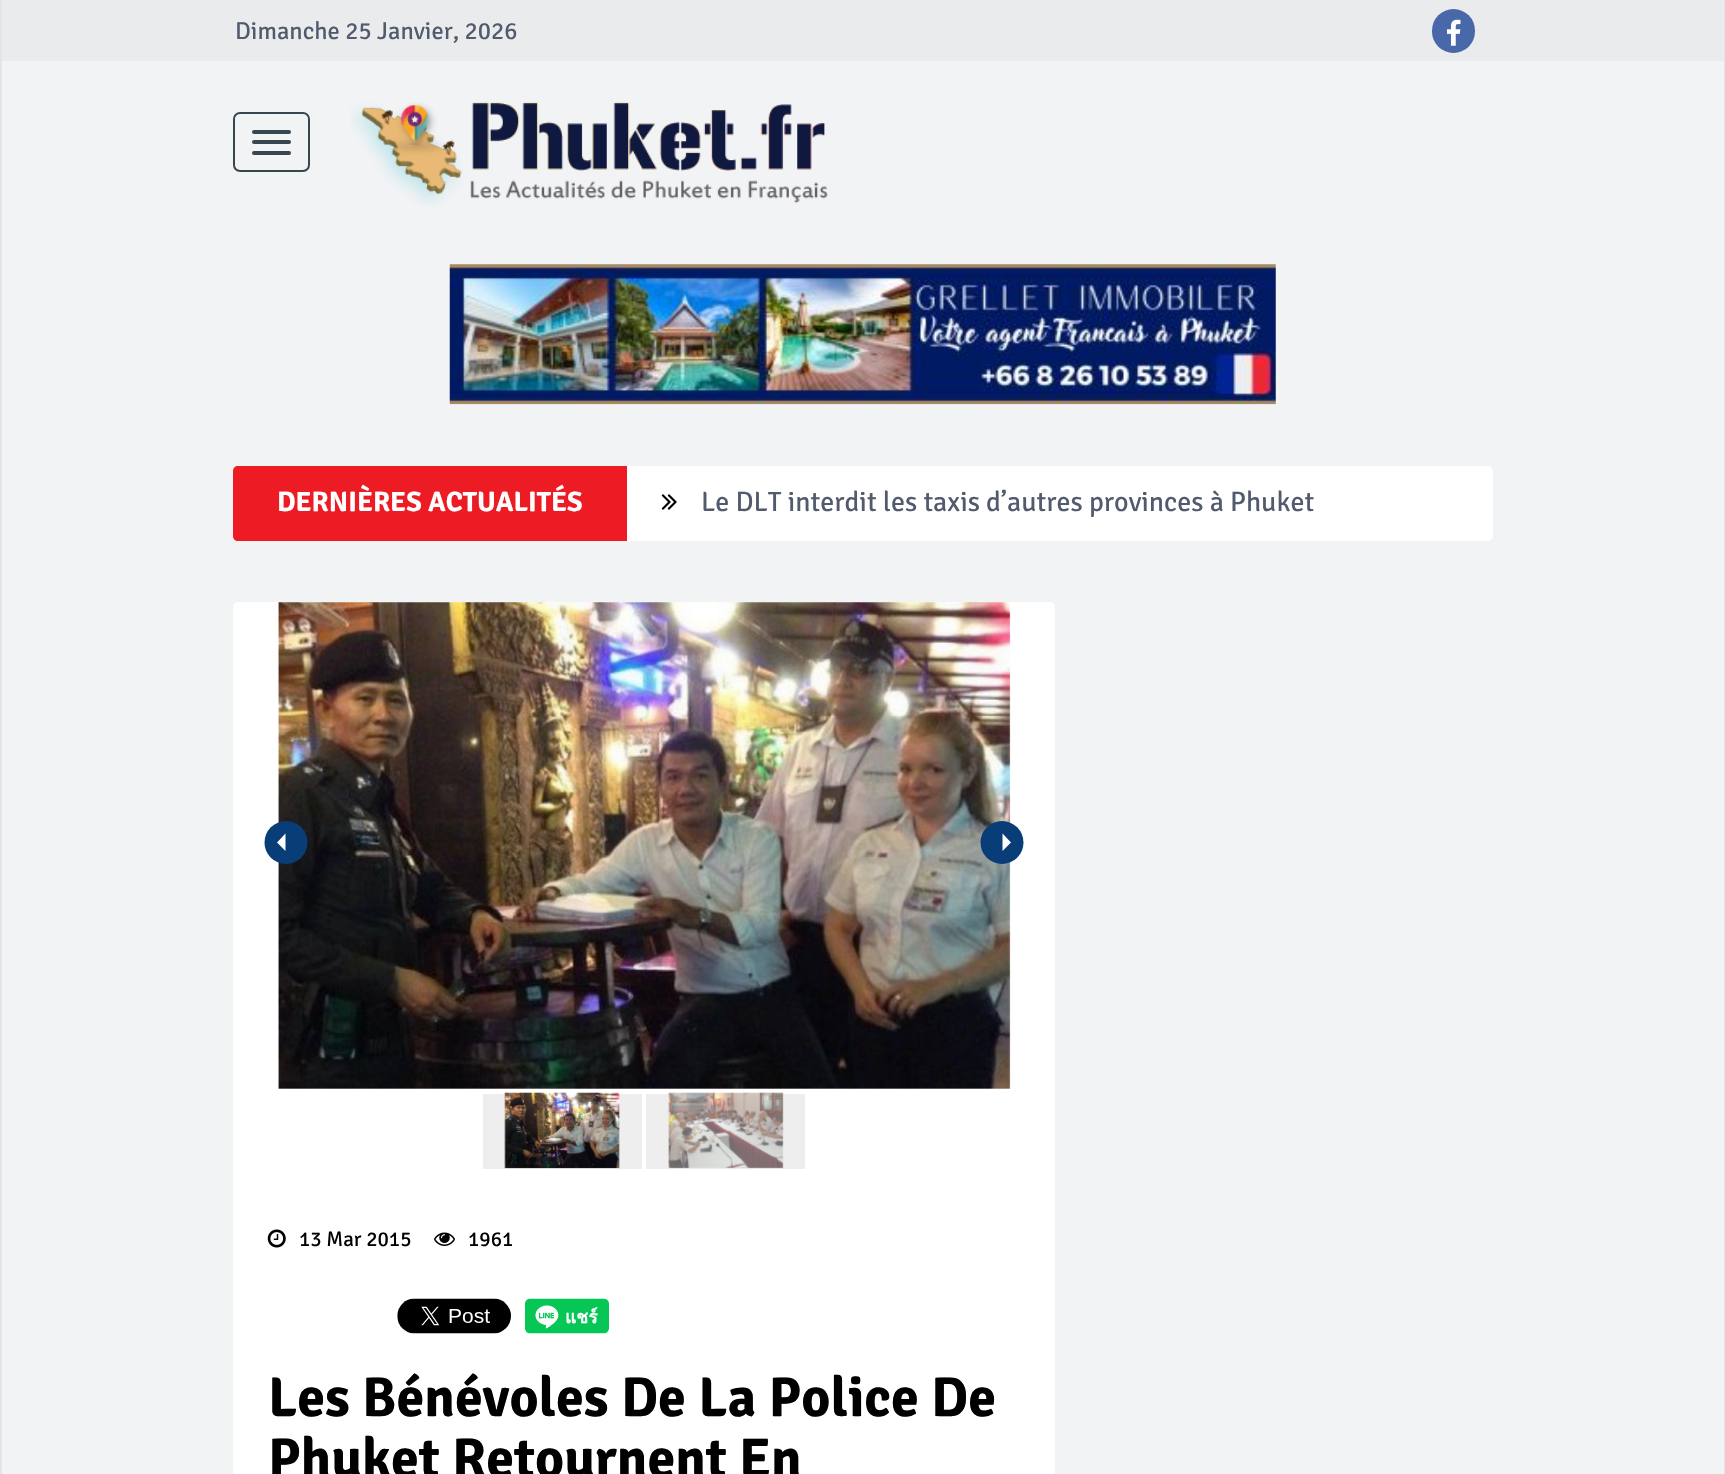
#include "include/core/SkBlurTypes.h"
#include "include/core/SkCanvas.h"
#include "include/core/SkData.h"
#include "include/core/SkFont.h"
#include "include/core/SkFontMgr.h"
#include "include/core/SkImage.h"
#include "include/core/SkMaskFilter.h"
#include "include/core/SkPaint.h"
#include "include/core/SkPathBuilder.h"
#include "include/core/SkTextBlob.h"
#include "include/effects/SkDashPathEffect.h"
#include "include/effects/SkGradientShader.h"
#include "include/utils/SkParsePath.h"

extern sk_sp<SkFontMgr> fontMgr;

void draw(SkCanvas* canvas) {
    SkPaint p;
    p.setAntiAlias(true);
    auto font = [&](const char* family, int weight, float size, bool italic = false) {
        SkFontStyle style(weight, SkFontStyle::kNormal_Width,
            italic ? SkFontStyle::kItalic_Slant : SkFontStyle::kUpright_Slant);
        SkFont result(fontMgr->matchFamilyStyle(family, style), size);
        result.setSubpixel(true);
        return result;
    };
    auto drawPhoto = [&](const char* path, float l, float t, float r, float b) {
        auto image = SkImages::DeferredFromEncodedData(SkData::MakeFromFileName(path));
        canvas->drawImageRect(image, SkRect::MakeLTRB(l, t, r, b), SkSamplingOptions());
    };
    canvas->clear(0xFFF2F3F5);
    {
        const struct { float l, t, r, b; SkColor color; } items[] = {
            {1724, 0, 1725, 1474, 0xFFE4E4E4},
            {0, 0, 2, 1474, 0xFFE4E4E4},
            {2, 0, 1724, 61, 0xFFEAEBED},
        };
        for (auto [l, t, r, b, color] : items) {
            p.setColor(color);
            canvas->drawRect(SkRect::MakeLTRB(l, t, r, b), p);
        }
    }
    auto font1 = font("Signika Negative", 400, 24.5f);
    p.setColor(0xFF525B6E);
    canvas->drawString("Dimanche 25 Janvier, 2026", 235, 39, font1, p);
    p.setColor(0xFF4968A9);
    canvas->drawRoundRect(SkRect::MakeLTRB(1432, 9, 1475, 53), 21.5f, 21.5f, p);
    drawPhoto("media/1.png", 1447, 19, 1461, 46);
    p.setStyle(SkPaint::kStroke_Style);
    p.setStrokeWidth(2);
    p.setColor(0xFF384650);
    canvas->drawRoundRect(SkRect::MakeLTRB(234, 113, 309, 171), 6, 6, p);
    p.setStyle(SkPaint::kFill_Style);
    canvas->drawRoundRect(SkRect::MakeLTRB(252, 130, 291, 134), 2, 2, p);
    canvas->drawRoundRect(SkRect::MakeLTRB(252, 140, 291, 144), 2, 2, p);
    canvas->drawRoundRect(SkRect::MakeLTRB(252, 151, 291, 155), 2, 2, p);
    drawPhoto("media/2.png", 350, 102, 828, 206);
    drawPhoto("media/3.png", 449, 264, 1276, 405);
    p.setColor(0xFFFFFFFF);
    canvas->drawRoundRect(SkRect::MakeLTRB(233, 466, 1493, 541), 5, 5, p);
    p.setColor(0xFFED1C24);
    canvas->drawPath(SkPathBuilder().moveTo(238, 466).lineTo(627, 466).lineTo(627, 541).lineTo(238, 541).cubicTo(235, 541, 233, 539, 233, 536).lineTo(233, 471).cubicTo(233, 468, 235, 466, 238, 466).close().detach(), p);
    auto font2 = font("Signika Negative", 700, 28);
    p.setColor(0xFFFFFFFF);
    canvas->drawString("DERNIÈRES ACTUALITÉS", 277, 511, font2, p);
    drawPhoto("media/4.png", 661, 494, 677, 510);
    auto font3 = font("Signika Negative", 400, 28);
    p.setColor(0xFF525B6E);
    canvas->drawString("Le DLT interdit les taxis d’autres provinces à Phuket", 701, 511, font3, p);
    p.setColor(0xFFFFFFFF);
    canvas->drawRoundRect(SkRect::MakeLTRB(233, 602, 1055, 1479), 5, 5, p);
    drawPhoto("media/5.png", 278, 602, 1011, 1089);
    p.setColor(0xFF083D77);
    canvas->drawCircle(286, 842.5f, 21.5f, p);
    p.setColor(0xFFFFFFFF);
    canvas->drawPath(SkPathBuilder().moveTo(285.5f, 833.5f).lineTo(277, 842.5f).lineTo(285.5f, 851).detach(), p);
    p.setColor(0xFF083D77);
    canvas->drawCircle(1002, 842.5f, 21.5f, p);
    p.setColor(0xFFFFFFFF);
    canvas->drawPath(SkPathBuilder().moveTo(1002.5f, 833.5f).lineTo(1011, 842.5f).lineTo(1002.5f, 851).detach(), p);
    p.setColor(0xFFEEEEEE);
    canvas->drawRect(SkRect::MakeLTRB(483, 1094, 642, 1169), p);
    drawPhoto("media/6.png", 504, 1092, 620, 1169);
    canvas->drawRect(SkRect::MakeLTRB(646, 1094, 805, 1169), p);
    drawPhoto("media/7.png", 668, 1092, 784, 1169);
    drawPhoto("media/8.png", 267, 1229, 286, 1248);
    auto font4 = font("Signika Negative", 400, 21);
    p.setColor(0xFF000000);
    canvas->drawString("13 Mar 2015", 299, 1246, font4, p);
    drawPhoto("media/9.png", 434, 1232, 455, 1246);
    canvas->drawString("1961", 468, 1246, font4, p);
    drawPhoto("media/10.png", 397, 1298, 511, 1334);
    drawPhoto("media/11.png", 525, 1298, 609, 1334);
    auto font5 = font("Signika Negative", 700, 56);
    canvas->drawString("Les Bénévoles De La Police De", 268, 1416, font5, p);
    canvas->drawString("Phuket Retournent En", 268, 1477, font5, p);
}
